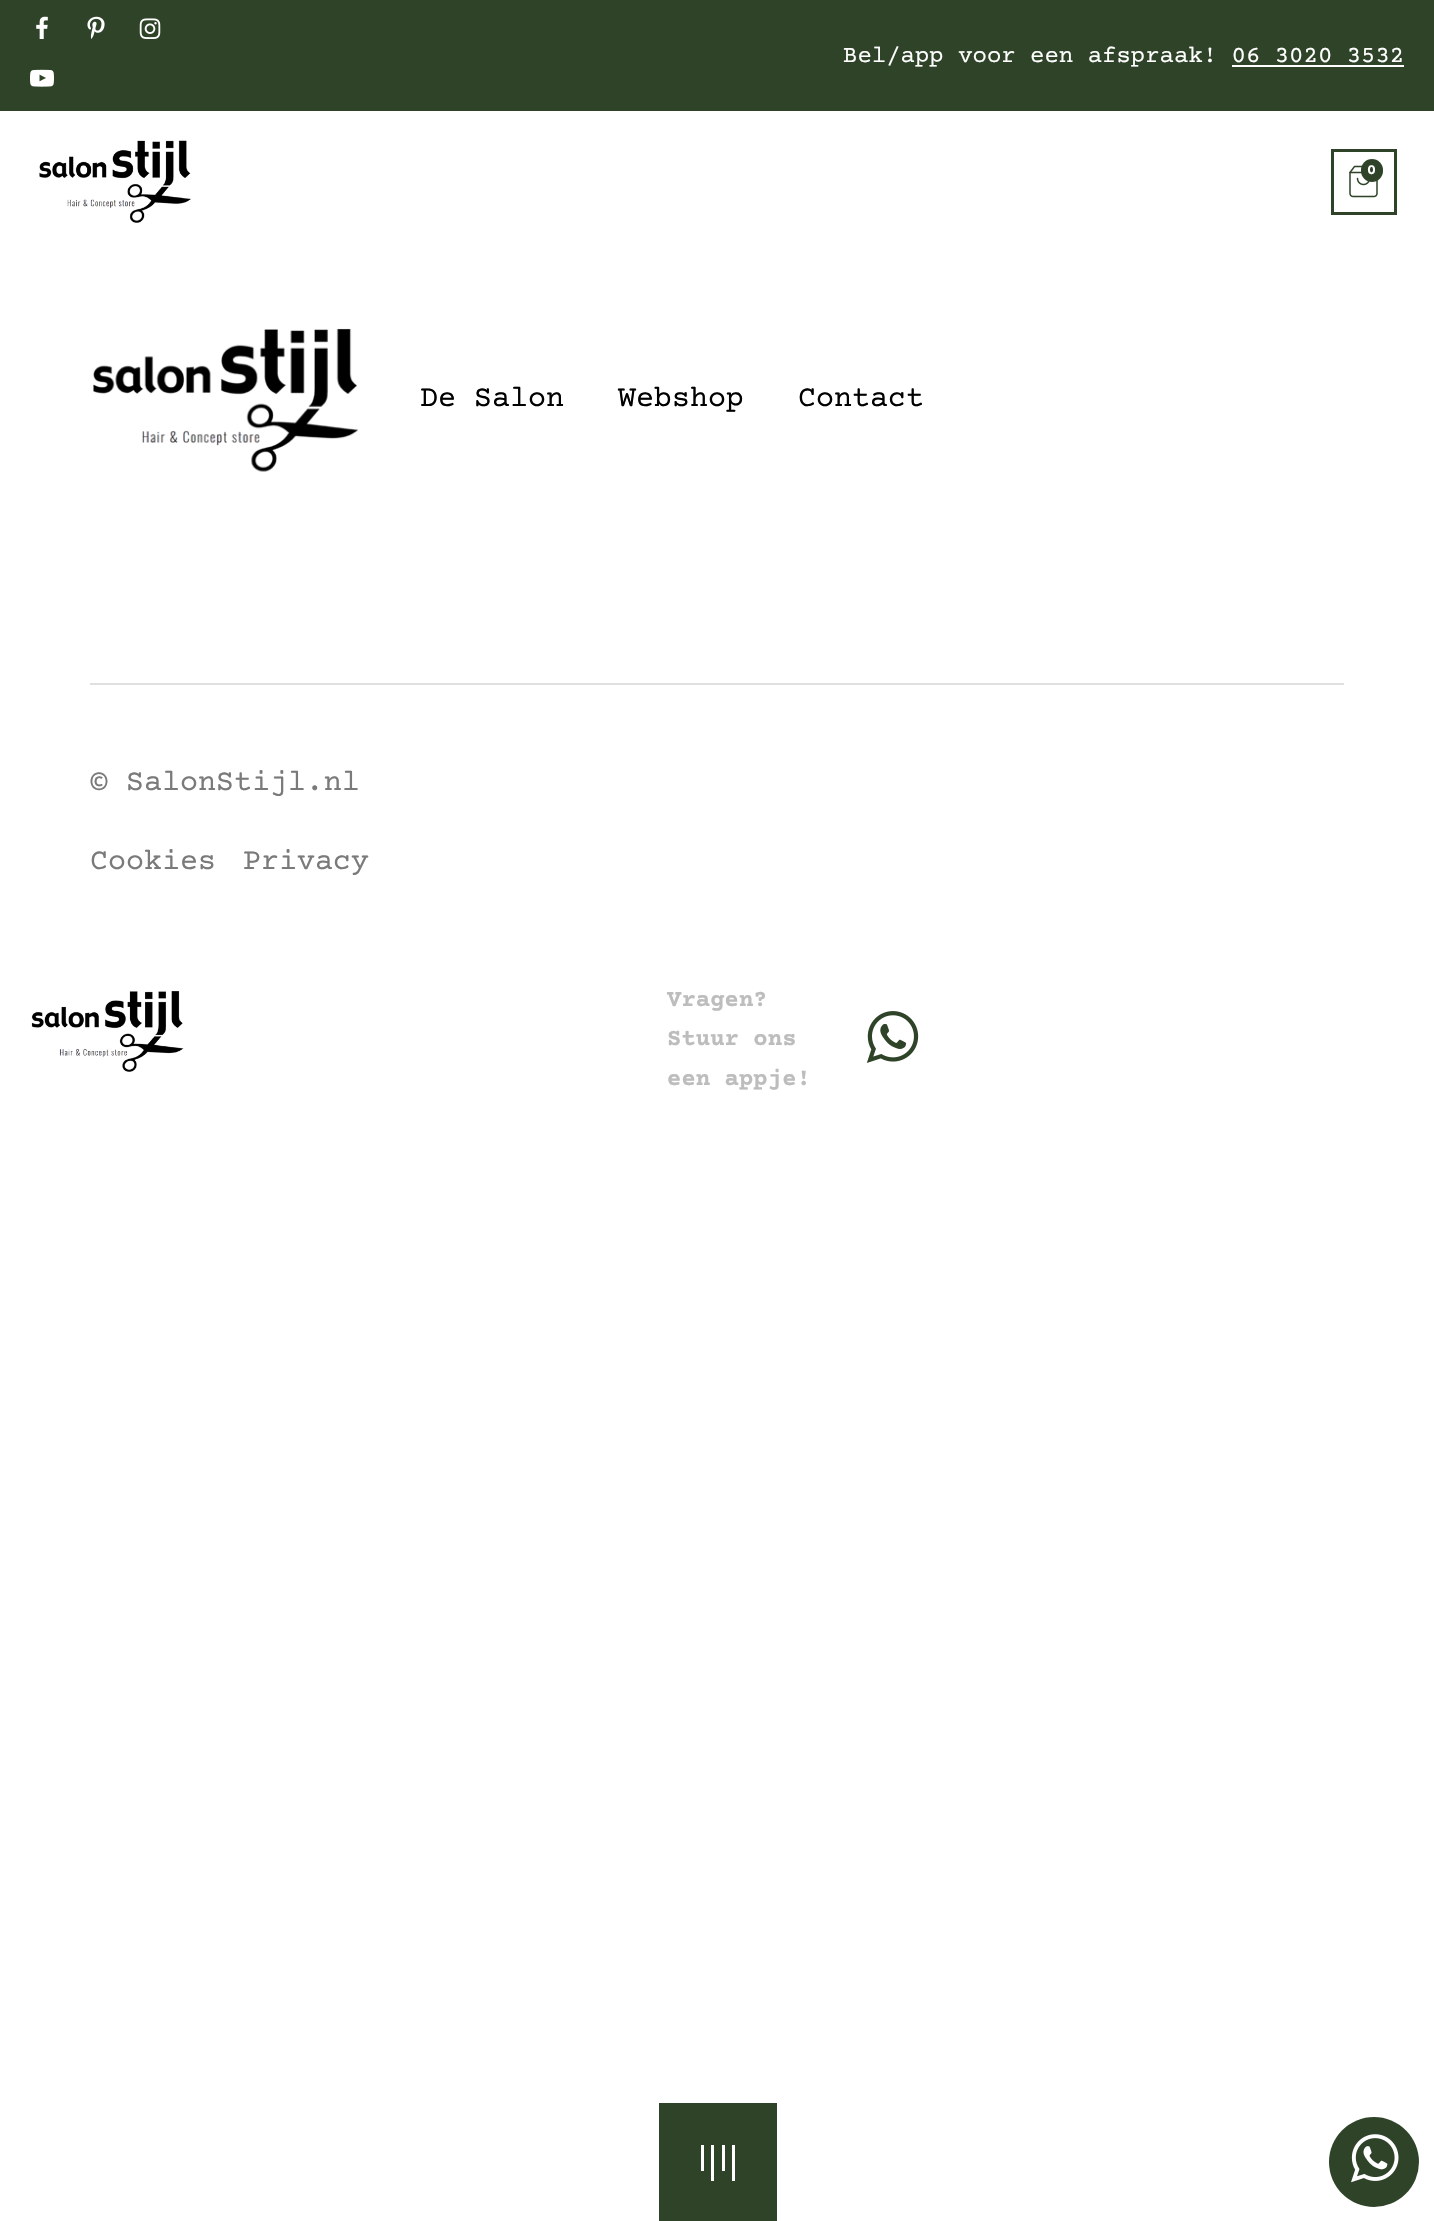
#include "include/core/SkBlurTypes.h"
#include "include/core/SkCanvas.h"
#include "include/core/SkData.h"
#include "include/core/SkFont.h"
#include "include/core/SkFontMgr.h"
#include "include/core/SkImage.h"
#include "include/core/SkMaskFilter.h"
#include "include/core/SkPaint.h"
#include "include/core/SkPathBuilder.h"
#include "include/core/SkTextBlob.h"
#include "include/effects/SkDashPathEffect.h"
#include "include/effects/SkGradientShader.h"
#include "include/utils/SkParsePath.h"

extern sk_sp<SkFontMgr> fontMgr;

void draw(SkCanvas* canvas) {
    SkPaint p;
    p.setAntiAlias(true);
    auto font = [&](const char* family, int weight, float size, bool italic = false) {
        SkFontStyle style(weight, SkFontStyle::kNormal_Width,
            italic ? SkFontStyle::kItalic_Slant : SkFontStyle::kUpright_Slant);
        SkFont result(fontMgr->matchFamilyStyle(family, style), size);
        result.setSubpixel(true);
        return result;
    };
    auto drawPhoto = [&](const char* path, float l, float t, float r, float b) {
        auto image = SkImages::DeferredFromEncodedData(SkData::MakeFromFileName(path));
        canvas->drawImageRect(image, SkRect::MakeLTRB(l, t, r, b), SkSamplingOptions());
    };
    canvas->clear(0xFFFFFFFF);
    p.setColor(0xFF2E4328);
    canvas->drawRect(SkRect::MakeLTRB(0, 0, 1434, 111), p);
    drawPhoto("media/1.png", 36, 16, 48, 39);
    drawPhoto("media/2.png", 87, 16, 105, 39);
    drawPhoto("media/3.png", 139, 18, 161, 39);
    drawPhoto("media/4.png", 30, 69, 54, 87);
    auto font1 = font("Courier Prime", 400, 24);
    p.setColor(0xFFFFFFFF);
    canvas->drawString("Bel/app voor een afspraak! 06 3020 3532", 843, 62, font1, p);
    canvas->drawRect(SkRect::MakeLTRB(1232, 65, 1404, 67), p);
    drawPhoto("media/5.png", 39, 140, 191, 223);
    p.setStyle(SkPaint::kStroke_Style);
    p.setStrokeWidth(3);
    p.setColor(0xFF2E4328);
    canvas->drawRect(SkRect::MakeLTRB(1332.5f, 150.5f, 1395.5f, 213.5f), p);
    drawPhoto("media/6.png", 1349, 165, 1378, 198);
    p.setStyle(SkPaint::kFill_Style);
    canvas->drawRoundRect(SkRect::MakeLTRB(1361, 159, 1383, 182), 11, 11, p);
    auto font2 = font("Courier Prime", 700, 15);
    p.setColor(0xFFFFFFFF);
    canvas->drawString("0", 1367, 174, font2, p);
    p.setColor(0xFF2E4328);
    canvas->drawCircle(1374, 2162, 45, p);
    drawPhoto("media/7.png", 1351, 2134, 1399, 2183);
    p.setColor(0xFFE0E0E0);
    canvas->drawRect(SkRect::MakeLTRB(90, 683, 1344, 685), p);
    drawPhoto("media/8.png", 93, 328, 358, 472);
    auto font3 = font("Courier Prime", 400, 30);
    p.setColor(0xFF000000);
    {
        const struct { const char* s; float x, y; } items[] = {
            {"De Salon", 420, 406},
            {"Webshop", 618, 406},
            {"Contact", 798, 406},
        };
        for (auto [s, x, y] : items) {
            canvas->drawString(s, x, y, font3, p);
        }
    }
    p.setColor(0xFF7A7A7A);
    {
        const struct { const char* s; float x, y; } items[] = {
            {"© SalonStijl.nl", 90, 790},
            {"Cookies", 90, 869},
            {"Privacy", 243, 869},
        };
        for (auto [s, x, y] : items) {
            canvas->drawString(s, x, y, font3, p);
        }
    }
    drawPhoto("media/9.png", 31, 991, 184, 1072);
    auto font4 = font("Courier Prime", 700, 24);
    p.setColor(0xFFBDBDBD);
    {
        const struct { const char* s; float x, y; } items[] = {
            {"Vragen?", 667, 1006},
            {"Stuur ons", 667, 1045},
            {"een appje!", 667, 1085},
        };
        for (auto [s, x, y] : items) {
            canvas->drawString(s, x, y, font4, p);
        }
    }
    drawPhoto("media/10.png", 866, 1011, 919, 1063);
    {
        const struct { float l, t, r, b; SkColor color; } items[] = {
            {659, 2103, 777, 2221, 0xFF2E4328},
            {701, 2145, 704, 2171, 0xFFFFFFFF},
            {711, 2145, 714, 2181, 0xFFFFFFFF},
            {722, 2145, 725, 2171, 0xFFFFFFFF},
            {732, 2145, 735, 2181, 0xFFFFFFFF},
        };
        for (auto [l, t, r, b, color] : items) {
            p.setColor(color);
            canvas->drawRect(SkRect::MakeLTRB(l, t, r, b), p);
        }
    }
}
